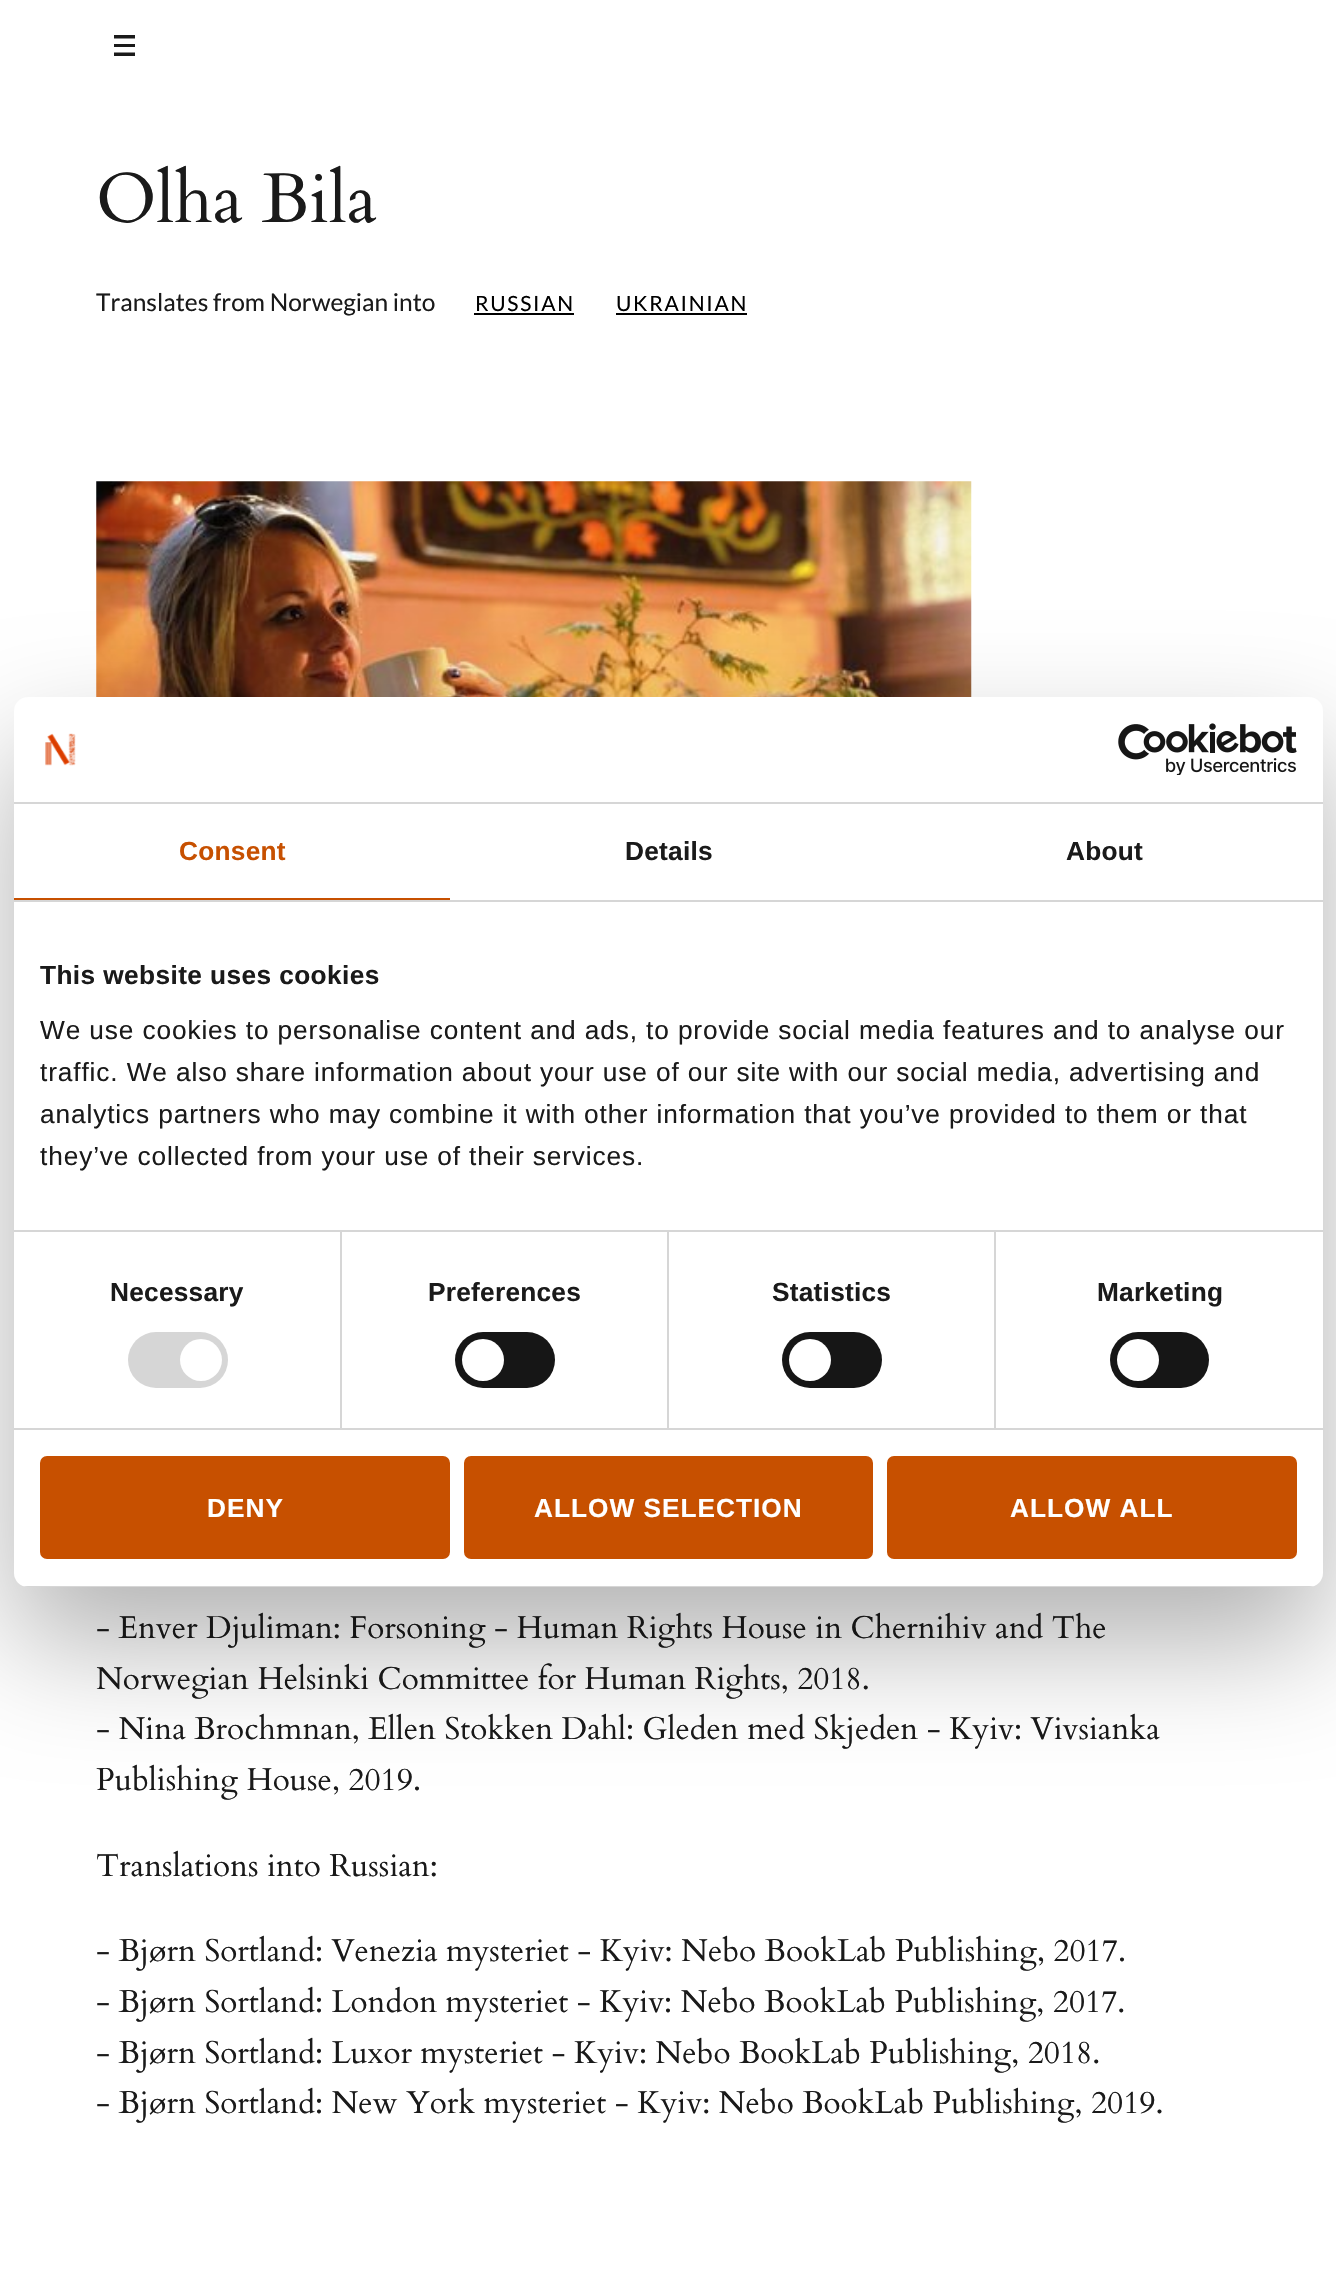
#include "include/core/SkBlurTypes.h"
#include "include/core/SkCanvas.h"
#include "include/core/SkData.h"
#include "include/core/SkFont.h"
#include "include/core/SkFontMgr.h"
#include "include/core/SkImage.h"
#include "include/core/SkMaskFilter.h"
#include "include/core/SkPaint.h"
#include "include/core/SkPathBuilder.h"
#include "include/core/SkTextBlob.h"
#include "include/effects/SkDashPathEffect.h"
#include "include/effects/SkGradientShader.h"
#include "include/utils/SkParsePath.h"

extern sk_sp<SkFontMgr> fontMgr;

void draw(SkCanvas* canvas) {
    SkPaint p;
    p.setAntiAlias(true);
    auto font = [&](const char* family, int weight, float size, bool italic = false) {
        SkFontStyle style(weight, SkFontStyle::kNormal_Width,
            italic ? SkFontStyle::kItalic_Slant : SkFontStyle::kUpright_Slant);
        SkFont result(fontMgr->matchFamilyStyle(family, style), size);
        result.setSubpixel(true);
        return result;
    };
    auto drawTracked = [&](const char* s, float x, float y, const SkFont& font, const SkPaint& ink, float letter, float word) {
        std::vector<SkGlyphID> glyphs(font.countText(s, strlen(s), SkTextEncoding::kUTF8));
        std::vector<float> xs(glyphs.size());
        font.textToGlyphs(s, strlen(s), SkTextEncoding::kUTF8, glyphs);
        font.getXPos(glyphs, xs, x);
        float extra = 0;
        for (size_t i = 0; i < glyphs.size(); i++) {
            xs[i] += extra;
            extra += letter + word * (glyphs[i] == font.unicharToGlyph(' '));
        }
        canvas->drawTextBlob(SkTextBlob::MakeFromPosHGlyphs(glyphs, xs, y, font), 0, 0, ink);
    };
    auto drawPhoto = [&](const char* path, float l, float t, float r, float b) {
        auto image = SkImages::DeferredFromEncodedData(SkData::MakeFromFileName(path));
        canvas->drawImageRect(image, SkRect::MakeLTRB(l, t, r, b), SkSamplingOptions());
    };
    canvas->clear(0xFFFFFFFF);
    p.setColor(0xFF1A1A1A);
    canvas->drawPath(SkPathBuilder().moveTo(114, 56).lineTo(135, 56).lineTo(135, 52.5f).lineTo(114, 52.5f).close().moveTo(114, 47).lineTo(135, 47).lineTo(135, 44).lineTo(114, 44).close().moveTo(114, 35).lineTo(114, 38.5f).lineTo(135, 38.5f).lineTo(135, 35).close().detach(), p);
    auto font1 = font("Cardo", 400, 70);
    canvas->drawString("Olha Bila", 96, 222, font1, p);
    auto font2 = font("Lato", 400, 24.5f);
    canvas->drawString("Translates from Norwegian into", 96, 311, font2, p);
    auto font3 = font("Lato", 400, 21);
    p.setColor(0xFF000000);
    drawTracked("RUSSIAN", 475, 311, font3, p, 1.75f, 0);
    canvas->drawRect(SkRect::MakeLTRB(474, 313, 574, 315), p);
    drawTracked("UKRAINIAN", 616, 311, font3, p, 1.75f, 0);
    canvas->drawRect(SkRect::MakeLTRB(616, 313, 747, 315), p);
    drawPhoto("media/1.png", 96, 481, 972, 697);
    auto font4 = font("Cardo", 400, 31.5f);
    p.setColor(0xFF1A1A1A);
    {
        const struct { const char* s; float x, y; } items[] = {
            {"- Enver Djuliman: Forsoning - Human Rights House in Chernihiv and The", 96, 1638},
            {"Norwegian Helsinki Committee for Human Rights, 2018.", 96, 1689},
            {"- Nina Brochmnan, Ellen Stokken Dahl: Gleden med Skjeden - Kyiv: Vivsianka", 96, 1739},
            {"Publishing House, 2019.", 96, 1790},
            {"Translations into Russian:", 96, 1876},
            {"- Bjørn Sortland: Venezia mysteriet - Kyiv: Nebo BookLab Publishing, 2017.", 96, 1961},
            {"- Bjørn Sortland: London mysteriet - Kyiv: Nebo BookLab Publishing, 2017.", 96, 2012},
            {"- Bjørn Sortland: Luxor mysteriet - Kyiv: Nebo BookLab Publishing, 2018.", 96, 2063},
            {"- Bjørn Sortland: New York mysteriet - Kyiv: Nebo BookLab Publishing, 2019.", 96, 2113},
        };
        for (auto [s, x, y] : items) {
            canvas->drawString(s, x, y, font4, p);
        }
    }
    p.setColor(0x4D000000);
    p.setMaskFilter(SkMaskFilter::MakeBlur(kNormal_SkBlurStyle, 59.5f));
    canvas->drawRoundRect(SkRect::MakeLTRB(14, 753, 1323, 1643), 14, 14, p);
    p.setMaskFilter(nullptr);
    p.setColor(0xFFFFFFFF);
    canvas->drawRoundRect(SkRect::MakeLTRB(14, 697, 1323, 1587), 14, 14, p);
    p.setColor(0xFFD6D6D6);
    canvas->drawRect(SkRect::MakeLTRB(14, 802, 1323, 804), p);
    drawPhoto("media/2.png", 45, 733, 76, 766);
    drawPhoto("media/3.png", 1118, 723, 1297, 775);
    canvas->drawRect(SkRect::MakeLTRB(14, 900, 1323, 902), p);
    p.setColor(0xFFC75000);
    canvas->drawRect(SkRect::MakeLTRB(14, 898, 450, 900), p);
    auto font5 = font("Liberation Sans", 700, 26.25f);
    drawTracked("Consent", 179, 860, font5, p, 0.25f, 0);
    p.setColor(0xFF1A1A1A);
    drawTracked("Details", 625, 860, font5, p, 0.25f, 0);
    drawTracked("About", 1066, 860, font5, p, 0.25f, 0);
    p.setColor(0xFFD6D6D6);
    canvas->drawRect(SkRect::MakeLTRB(14, 1230, 1323, 1232), p);
    p.setColor(0xFF1A1A1A);
    drawTracked("This website uses cookies", 40, 984, font5, p, 0.4f, 0);
    auto font6 = font("Liberation Sans", 400, 26.25f);
    {
        const struct { const char* s; float x, y; } items[] = {
            {"We use cookies to personalise content and ads, to provide social media features and to analyse our", 40, 1039},
            {"traffic. We also share information about your use of our site with our social media, advertising and", 40, 1081},
            {"analytics partners who may combine it with other information that you’ve provided to them or that", 40, 1123},
            {"they’ve collected from your use of their services.", 40, 1165},
        };
        for (auto [s, x, y] : items) {
            drawTracked(s, x, y, font6, p, 0.88f, 0);
        }
    }
    p.setColor(0xFFD6D6D6);
    canvas->drawRect(SkRect::MakeLTRB(14, 1428, 1323, 1430), p);
    canvas->drawRect(SkRect::MakeLTRB(340, 1232, 342, 1428), p);
    p.setColor(0xFF1A1A1A);
    drawTracked("Necessary", 110, 1301, font5, p, 0.25f, 0);
    p.setColor(0xFFD6D6D6);
    canvas->drawRoundRect(SkRect::MakeLTRB(128, 1332, 228, 1388), 28, 28, p);
    p.setColor(0xFFFFFFFF);
    canvas->drawCircle(201, 1360, 21, p);
    p.setColor(0xFFD6D6D6);
    canvas->drawRect(SkRect::MakeLTRB(667, 1232, 669, 1428), p);
    p.setColor(0xFF1A1A1A);
    drawTracked("Preferences", 428, 1301, font5, p, 0.25f, 0);
    p.setColor(0xFF161616);
    canvas->drawRoundRect(SkRect::MakeLTRB(455, 1332, 555, 1388), 28, 28, p);
    p.setColor(0xFFFFFFFF);
    canvas->drawCircle(483, 1360, 21, p);
    p.setColor(0xFFD6D6D6);
    canvas->drawRect(SkRect::MakeLTRB(994, 1232, 996, 1428), p);
    p.setColor(0xFF1A1A1A);
    drawTracked("Statistics", 772, 1301, font5, p, 0.25f, 0);
    p.setColor(0xFF161616);
    canvas->drawRoundRect(SkRect::MakeLTRB(782, 1332, 882, 1388), 28, 28, p);
    p.setColor(0xFFFFFFFF);
    canvas->drawCircle(810, 1360, 21, p);
    p.setColor(0xFF1A1A1A);
    drawTracked("Marketing", 1097, 1301, font5, p, 0.25f, 0);
    p.setColor(0xFF161616);
    canvas->drawRoundRect(SkRect::MakeLTRB(1110, 1332, 1209, 1388), 28, 28, p);
    p.setColor(0xFFFFFFFF);
    canvas->drawCircle(1138, 1360, 21, p);
    canvas->save();
    canvas->clipPath(SkPathBuilder().moveTo(28, 697).lineTo(1309, 697).cubicTo(1316.5f, 697, 1323, 703.5f, 1323, 711).lineTo(1323, 1573).cubicTo(1323, 1580.5f, 1316.5f, 1587, 1309, 1587).lineTo(28, 1587).cubicTo(20.5f, 1587, 14, 1580.5f, 14, 1573).lineTo(14, 711).cubicTo(14, 703.5f, 20.5f, 697, 28, 697).close().detach(), true);
    p.setColor(0xFFD6D6D6);
    canvas->drawRect(SkRect::MakeLTRB(23, 1586, 1314, 1587), p);
    canvas->restore();
    p.setColor(0xFFC75000);
    canvas->drawRoundRect(SkRect::MakeLTRB(42, 1458, 448, 1557), 5, 5, p);
    p.setStyle(SkPaint::kStroke_Style);
    p.setStrokeWidth(4);
    canvas->drawRoundRect(SkRect::MakeLTRB(42, 1458, 448, 1557), 5, 5, p);
    p.setStyle(SkPaint::kFill_Style);
    p.setColor(0xFFFFFFFF);
    drawTracked("DENY", 207, 1517, font5, p, 1, 0);
    p.setColor(0xFFC75000);
    canvas->drawRoundRect(SkRect::MakeLTRB(466, 1458, 871, 1557), 5, 5, p);
    p.setStyle(SkPaint::kStroke_Style);
    canvas->drawRoundRect(SkRect::MakeLTRB(466, 1458, 871, 1557), 5, 5, p);
    p.setStyle(SkPaint::kFill_Style);
    p.setColor(0xFFFFFFFF);
    drawTracked("ALLOW SELECTION", 534, 1517, font5, p, 1, 0);
    p.setColor(0xFFC75000);
    canvas->drawRoundRect(SkRect::MakeLTRB(889, 1458, 1295, 1557), 5, 5, p);
    p.setStyle(SkPaint::kStroke_Style);
    canvas->drawRoundRect(SkRect::MakeLTRB(889, 1458, 1295, 1557), 5, 5, p);
    p.setStyle(SkPaint::kFill_Style);
    p.setColor(0xFFFFFFFF);
    drawTracked("ALLOW ALL", 1010, 1517, font5, p, 1, 0);
}
